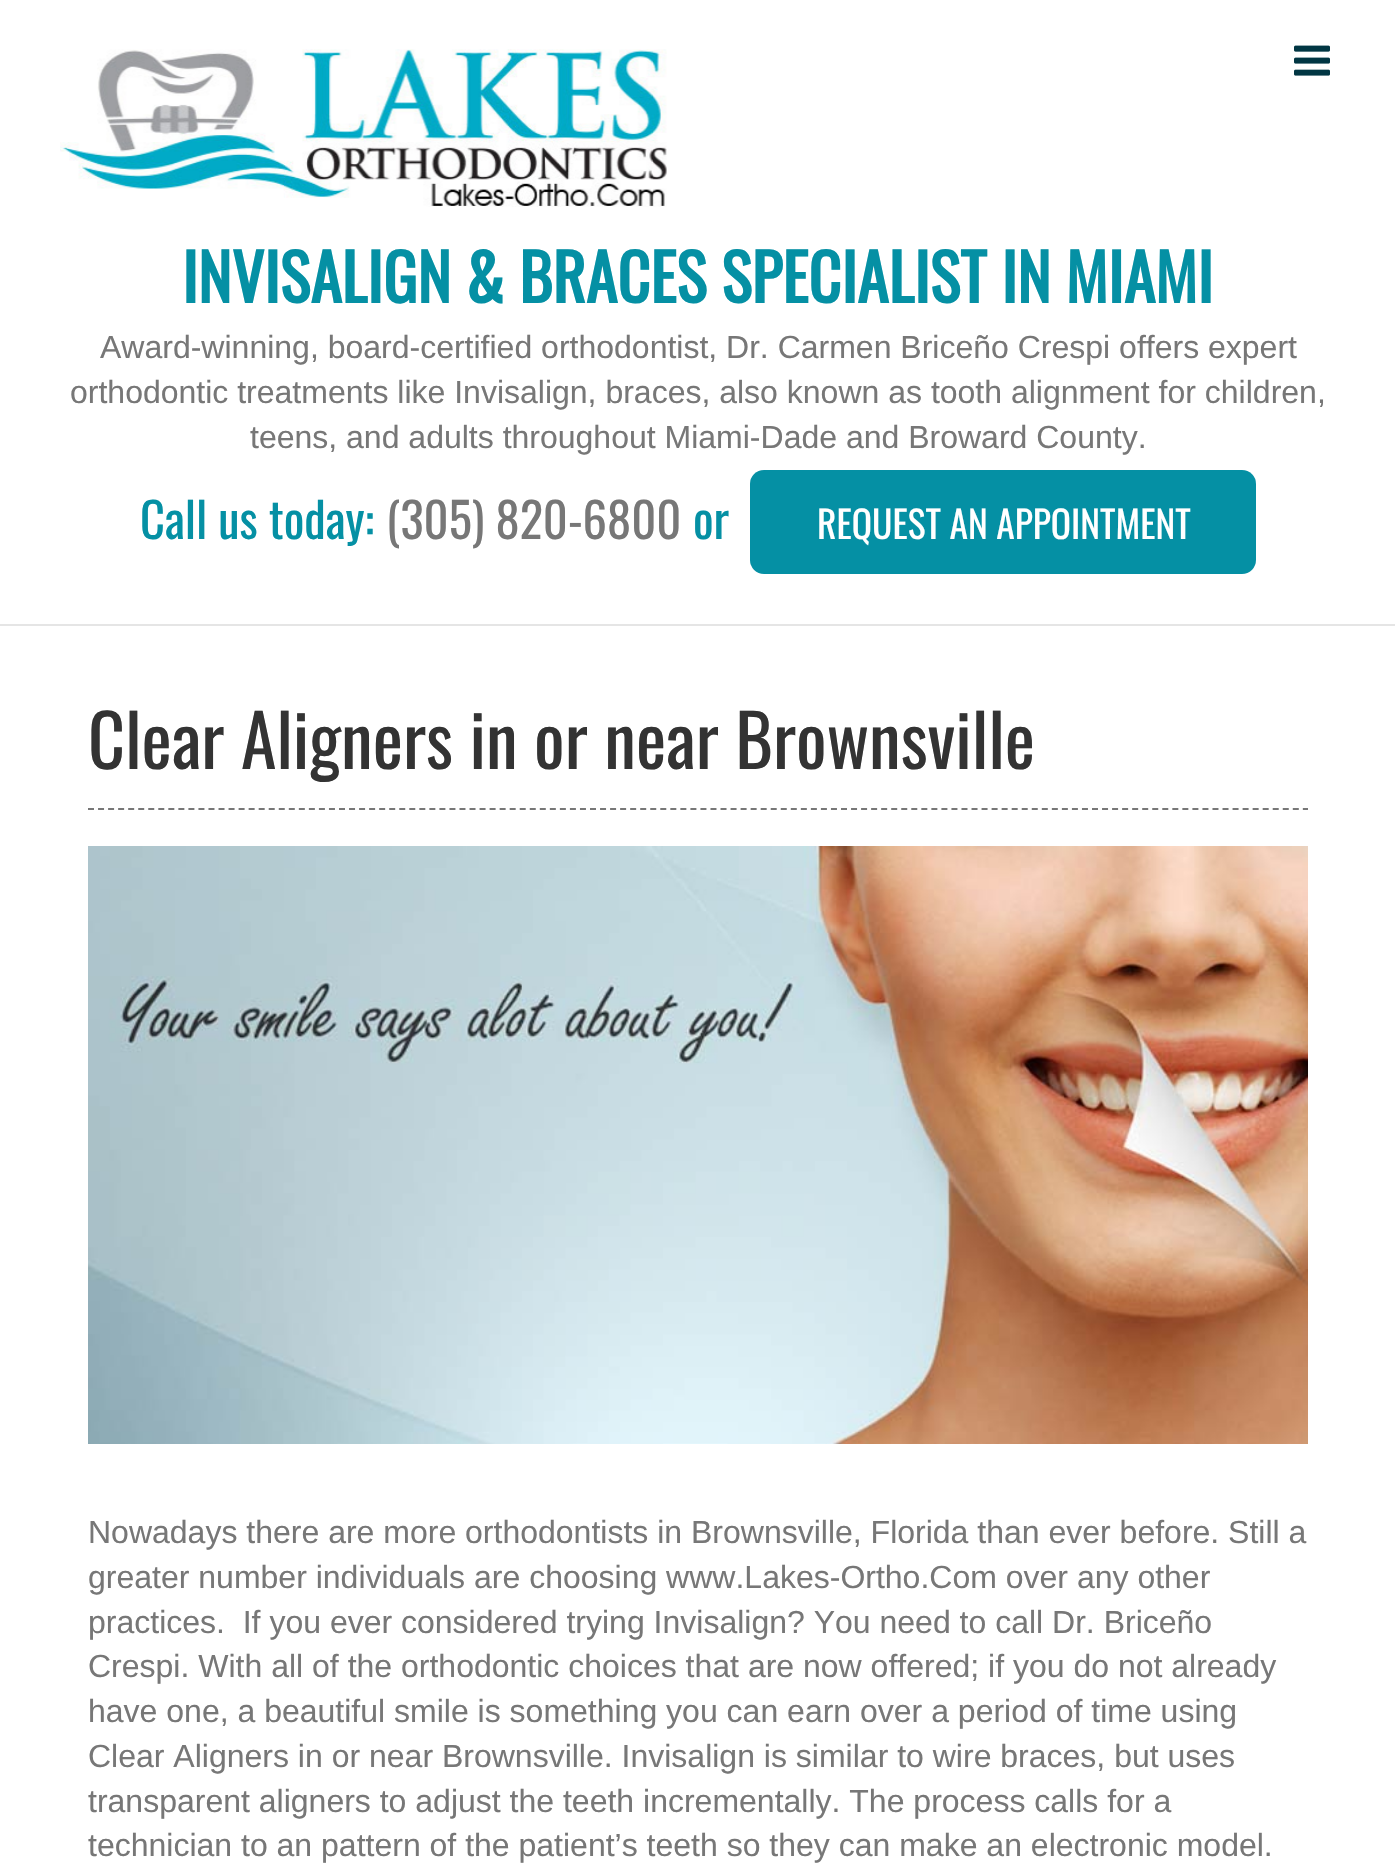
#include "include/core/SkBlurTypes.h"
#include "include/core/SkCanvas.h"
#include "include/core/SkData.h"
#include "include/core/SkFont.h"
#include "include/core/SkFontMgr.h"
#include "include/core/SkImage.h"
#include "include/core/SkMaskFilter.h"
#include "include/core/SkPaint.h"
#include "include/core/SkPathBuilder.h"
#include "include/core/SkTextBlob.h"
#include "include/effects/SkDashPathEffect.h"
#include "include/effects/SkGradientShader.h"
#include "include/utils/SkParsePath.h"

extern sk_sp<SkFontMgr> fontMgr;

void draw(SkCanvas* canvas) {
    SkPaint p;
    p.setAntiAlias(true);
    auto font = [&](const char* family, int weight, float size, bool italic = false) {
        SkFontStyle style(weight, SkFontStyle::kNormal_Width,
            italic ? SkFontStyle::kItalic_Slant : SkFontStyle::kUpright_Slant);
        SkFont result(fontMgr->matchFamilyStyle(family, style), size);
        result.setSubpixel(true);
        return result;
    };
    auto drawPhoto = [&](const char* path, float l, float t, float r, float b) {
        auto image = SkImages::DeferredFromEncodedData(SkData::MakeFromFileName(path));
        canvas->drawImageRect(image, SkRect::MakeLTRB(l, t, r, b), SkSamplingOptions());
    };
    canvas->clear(0xFFFFFFFF);
    p.setColor(0xFFE5E5E5);
    canvas->drawRect(SkRect::MakeLTRB(0, 624, 1395, 626), p);
    drawPhoto("media/1.png", 1294, 45, 1330, 76);
    drawPhoto("media/2.png", 60, 49, 667, 207);
    auto font1 = font("Oswald", 700, 64);
    p.setColor(0xFF0590A4);
    canvas->drawString("INVISALIGN & BRACES SPECIALIST IN MIAMI", 182, 303, font1, p);
    auto font2 = font("Liberation Sans", 400, 32);
    p.setColor(0xFF777777);
    {
        const struct { const char* s; float x, y; } items[] = {
            {"Award-winning, board-certified orthodontist, Dr. Carmen Briceño Crespi offers expert", 100, 358},
            {"orthodontic treatments like Invisalign, braces, also known as tooth alignment for children,", 70, 403},
            {"teens, and adults throughout Miami-Dade and Broward County.", 250, 448},
        };
        for (auto [s, x, y] : items) {
            canvas->drawString(s, x, y, font2, p);
        }
    }
    auto font3 = font("Oswald", 400, 48.5f);
    p.setColor(0xFF0590A4);
    canvas->drawString("Call us today:", 140, 539, font3, p);
    p.setColor(0xFF777777);
    canvas->drawString("(305) 820-6800", 386, 539, font3, p);
    p.setColor(0xFF0590A4);
    canvas->drawString("or", 693, 539, font3, p);
    canvas->drawRoundRect(SkRect::MakeLTRB(750, 470, 1256, 574), 14, 14, p);
    auto font4 = font("Oswald", 400, 37.5f);
    p.setColor(0xFFFFFFFF);
    canvas->drawString("REQUEST AN APPOINTMENT", 817, 539, font4, p);
    p.setStyle(SkPaint::kStroke_Style);
    p.setStrokeWidth(2);
    p.setColor(0xFF777777);
    p.setPathEffect(SkDashPathEffect::Make({{6, 4.04f}}, 0));
    canvas->drawPath(SkPathBuilder().moveTo(88, 809).lineTo(1308, 809).detach(), p);
    p.setPathEffect(nullptr);
    auto font5 = font("Oswald", 400, 72);
    p.setStyle(SkPaint::kFill_Style);
    p.setColor(0xFF333333);
    canvas->drawString("Clear Aligners in or near Brownsville", 88, 769, font5, p);
    drawPhoto("media/3.png", 88, 846, 1308, 1444);
    p.setColor(0xFF777777);
    {
        const struct { const char* s; float x, y; } items[] = {
            {"Nowadays there are more orthodontists in Brownsville, Florida than ever before. Still a", 88, 1543},
            {"greater number individuals are choosing www.Lakes-Ortho.Com over any other", 88, 1588},
            {"practices.  If you ever considered trying Invisalign? You need to call Dr. Briceño", 88, 1633},
            {"Crespi. With all of the orthodontic choices that are now offered; if you do not already", 88, 1677},
            {"have one, a beautiful smile is something you can earn over a period of time using", 88, 1722},
            {"Clear Aligners in or near Brownsville. Invisalign is similar to wire braces, but uses", 88, 1767},
            {"transparent aligners to adjust the teeth incrementally. The process calls for a", 88, 1812},
            {"technician to an pattern of the patient’s teeth so they can make an electronic model.", 88, 1856},
        };
        for (auto [s, x, y] : items) {
            canvas->drawString(s, x, y, font2, p);
        }
    }
}
